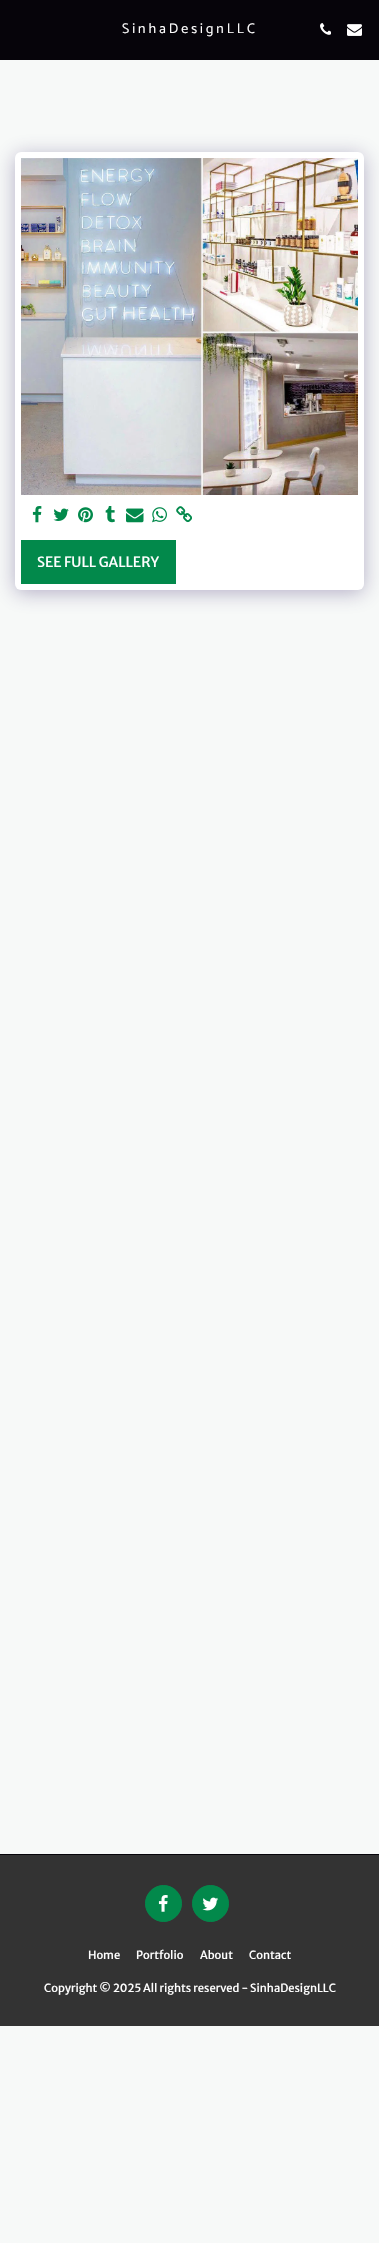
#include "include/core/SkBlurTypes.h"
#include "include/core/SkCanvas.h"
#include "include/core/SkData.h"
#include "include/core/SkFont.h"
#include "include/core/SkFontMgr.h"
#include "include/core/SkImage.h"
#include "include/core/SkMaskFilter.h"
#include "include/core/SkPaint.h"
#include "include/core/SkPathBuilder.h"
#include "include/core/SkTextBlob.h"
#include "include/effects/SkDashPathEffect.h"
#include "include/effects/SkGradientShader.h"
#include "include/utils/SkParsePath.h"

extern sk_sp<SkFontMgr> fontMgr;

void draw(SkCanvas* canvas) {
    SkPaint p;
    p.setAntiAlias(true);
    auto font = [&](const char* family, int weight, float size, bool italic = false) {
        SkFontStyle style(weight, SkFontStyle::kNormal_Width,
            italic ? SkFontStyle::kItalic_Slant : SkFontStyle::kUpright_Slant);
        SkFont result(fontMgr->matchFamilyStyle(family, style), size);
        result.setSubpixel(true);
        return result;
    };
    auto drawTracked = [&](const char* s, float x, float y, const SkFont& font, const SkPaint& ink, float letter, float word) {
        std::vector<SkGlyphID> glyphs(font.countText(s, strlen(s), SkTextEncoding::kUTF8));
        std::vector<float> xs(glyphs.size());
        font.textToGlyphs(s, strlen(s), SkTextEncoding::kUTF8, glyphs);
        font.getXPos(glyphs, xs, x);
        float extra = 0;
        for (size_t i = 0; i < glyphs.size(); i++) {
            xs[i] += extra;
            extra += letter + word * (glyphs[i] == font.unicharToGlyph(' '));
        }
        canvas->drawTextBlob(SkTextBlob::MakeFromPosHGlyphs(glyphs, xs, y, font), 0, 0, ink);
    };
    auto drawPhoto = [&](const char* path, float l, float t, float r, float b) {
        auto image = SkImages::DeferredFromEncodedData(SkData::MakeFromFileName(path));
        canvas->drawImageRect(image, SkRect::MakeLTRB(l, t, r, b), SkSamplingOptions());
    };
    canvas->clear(0xFFF7F9F8);
    p.setColor(0xFF06040A);
    canvas->drawRect(SkRect::MakeLTRB(0, 0, 379, 60), p);
    auto font1 = font("Catamaran", 400, 14);
    p.setColor(0xFFFFFFFF);
    drawTracked("SinhaDesignLLC", 122, 33, font1, p, 3, 0);
    drawPhoto("media/1.png", 320, 23, 331, 35);
    drawPhoto("media/2.png", 347, 24, 362, 36);
    p.setColor(0x664D3F7A);
    p.setMaskFilter(SkMaskFilter::MakeBlur(kNormal_SkBlurStyle, 10));
    canvas->drawRoundRect(SkRect::MakeLTRB(15, 155, 364, 593), 6, 6, p);
    p.setMaskFilter(nullptr);
    p.setColor(0xFFFFFFFF);
    canvas->drawRoundRect(SkRect::MakeLTRB(15, 152, 364, 590), 6, 6, p);
    drawPhoto("media/3.png", 21, 158, 358, 495);
    drawPhoto("media/4.png", 32, 506, 42, 523);
    drawPhoto("media/5.png", 53, 508, 69, 521);
    drawPhoto("media/6.png", 78, 507, 93, 523);
    drawPhoto("media/7.png", 105, 506, 115, 523);
    drawPhoto("media/8.png", 126, 508, 144, 523);
    drawPhoto("media/9.png", 152, 507, 167, 523);
    drawPhoto("media/10.png", 176, 506, 192, 523);
    p.setColor(0xFF02894B);
    canvas->drawRect(SkRect::MakeLTRB(21, 540, 176, 584), p);
    auto font2 = font("Merriweather Sans", 400, 14);
    p.setColor(0xFFFFFFFF);
    canvas->drawString("SEE FULL GALLERY", 37, 567, font2, p);
    p.setColor(0xFF06040A);
    canvas->drawRect(SkRect::MakeLTRB(0, 1854, 379, 1855), p);
    p.setColor(0xFF333333);
    canvas->drawRect(SkRect::MakeLTRB(0, 1855, 379, 2026), p);
    p.setColor(0xFF02894B);
    canvas->drawCircle(163.5f, 1903.5f, 18, p);
    p.setStyle(SkPaint::kStroke_Style);
    p.setStrokeWidth(1);
    canvas->drawCircle(163.5f, 1903.5f, 18, p);
    drawPhoto("media/11.png", 158, 1895, 168, 1912);
    p.setStyle(SkPaint::kFill_Style);
    canvas->drawCircle(210.5f, 1903.5f, 18, p);
    p.setStyle(SkPaint::kStroke_Style);
    canvas->drawCircle(210.5f, 1903.5f, 18, p);
    drawPhoto("media/12.png", 202, 1897, 219, 1911);
    auto font3 = font("Merriweather Sans", 400, 11.2f);
    p.setStyle(SkPaint::kFill_Style);
    p.setColor(0xFFFFFFFF);
    {
        const struct { const char* s; float x, y; } items[] = {
            {"Home", 88, 1959},
            {"Portfolio", 136, 1959},
            {"About", 200, 1959},
            {"Contact", 249, 1959},
            {"Copyright © 2025 All rights reserved - SinhaDesignLLC", 44, 1992},
        };
        for (auto [s, x, y] : items) {
            canvas->drawString(s, x, y, font3, p);
        }
    }
}
